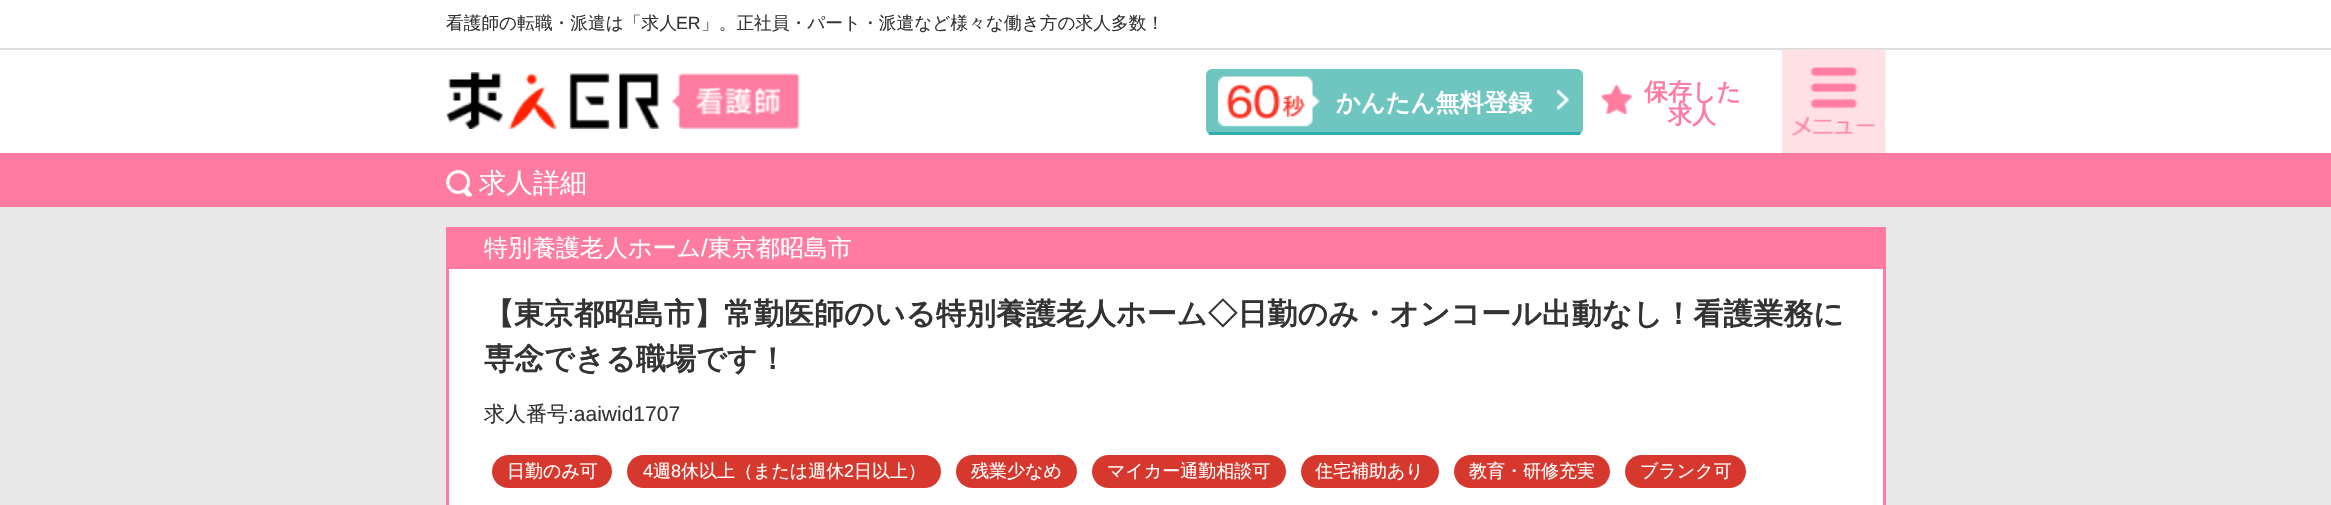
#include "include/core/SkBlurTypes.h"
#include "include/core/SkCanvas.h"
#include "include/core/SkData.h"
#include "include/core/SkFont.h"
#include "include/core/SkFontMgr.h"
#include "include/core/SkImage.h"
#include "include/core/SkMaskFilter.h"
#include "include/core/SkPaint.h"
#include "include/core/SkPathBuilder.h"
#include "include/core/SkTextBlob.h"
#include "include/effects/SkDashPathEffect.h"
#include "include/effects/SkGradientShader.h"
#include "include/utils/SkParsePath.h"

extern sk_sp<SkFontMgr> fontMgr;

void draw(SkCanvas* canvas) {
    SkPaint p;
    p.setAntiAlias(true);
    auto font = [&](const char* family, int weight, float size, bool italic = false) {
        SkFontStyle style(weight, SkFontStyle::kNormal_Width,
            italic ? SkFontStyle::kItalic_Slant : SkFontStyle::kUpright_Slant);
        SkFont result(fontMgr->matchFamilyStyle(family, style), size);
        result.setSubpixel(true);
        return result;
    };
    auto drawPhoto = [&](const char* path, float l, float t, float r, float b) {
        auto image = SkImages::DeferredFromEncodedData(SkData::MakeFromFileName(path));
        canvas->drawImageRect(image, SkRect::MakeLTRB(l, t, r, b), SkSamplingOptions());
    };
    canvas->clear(0xFFFFFFFF);
    auto font1 = font("WenQuanYi Zen Hei", 500, 17.7f);
    p.setColor(0xFF333333);
    canvas->drawString("看護師の転職・派遣は「求人", 446, 29, font1, p);
    auto font2 = font("Liberation Sans", 400, 17.7f);
    canvas->drawString("ER", 676, 29, font2, p);
    canvas->drawString("」。正社員・パート・派遣など様々な働き方の求人多数！", 701, 29, font1, p);
    p.setColor(0xFFDCDCDC);
    canvas->drawRect(SkRect::MakeLTRB(0, 48, 2331, 50), p);
    drawPhoto("media/1.png", 446, 72, 800, 129);
    p.setColor(0xFF6FC6C0);
    canvas->drawRoundRect(SkRect::MakeLTRB(1206, 69, 1583, 135), 6, 6, p);
    drawPhoto("media/2.png", 1557, 90, 1569, 110);
    p.setColor(0xFF2FADAD);
    canvas->drawRect(SkRect::MakeLTRB(1209, 132, 1580, 135), p);
    drawPhoto("media/3.png", 1218, 76, 1320, 127);
    auto font3 = font("WenQuanYi Zen Hei", 700, 24.25f);
    p.setColor(0xFFFFFFFF);
    canvas->drawString("かんたん無料登録", 1336, 111, font3, p);
    drawPhoto("media/4.png", 1600, 84, 1632, 114);
    auto font4 = font("WenQuanYi Zen Hei", 700, 24);
    p.setColor(0xFFFF7CA4);
    canvas->drawString("保存した", 1644, 100, font4, p);
    canvas->drawString("求人", 1668, 123, font4, p);
    drawPhoto("media/5.png", 1782, 49, 1886, 153);
    p.setColor(0xFFE8E8E8);
    canvas->drawRect(SkRect::MakeLTRB(0, 207, 2331, 505), p);
    p.setColor(0xFFFF7BA0);
    canvas->drawRect(SkRect::MakeLTRB(0, 153, 2331, 207), p);
    drawPhoto("media/6.png", 446, 169, 472, 197);
    auto font5 = font("WenQuanYi Zen Hei", 500, 27);
    p.setColor(0xFFFFFFFF);
    canvas->drawString("求人詳細", 479, 192, font5, p);
    canvas->drawRect(SkRect::MakeLTRB(449, 269, 1883, 505), p);
    p.setStyle(SkPaint::kStroke_Style);
    p.setStrokeWidth(3);
    p.setColor(0xFFFF7BA0);
    canvas->drawRect(SkRect::MakeLTRB(447.5f, 228.5f, 1884.5f, 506.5f), p);
    p.setStyle(SkPaint::kFill_Style);
    canvas->drawRect(SkRect::MakeLTRB(449, 230, 1883, 269), p);
    auto font6 = font("WenQuanYi Zen Hei", 500, 24);
    p.setColor(0xFFFFFFFF);
    canvas->drawString("特別養護老人ホーム", 484, 256, font6, p);
    auto font7 = font("Liberation Sans", 400, 24);
    canvas->drawString("/", 701, 256, font7, p);
    canvas->drawString("東京都昭島市", 708, 256, font6, p);
    auto font8 = font("WenQuanYi Zen Hei", 700, 30);
    p.setColor(0xFF333333);
    canvas->drawString("【東京都昭島市】常勤医師のいる特別養護老人ホーム◇日勤のみ・オンコール出動なし！看護業務に", 484, 324, font8, p);
    canvas->drawString("専念できる職場です！", 484, 369, font8, p);
    auto font9 = font("WenQuanYi Zen Hei", 500, 21);
    canvas->drawString("求人番号", 484, 421, font9, p);
    auto font10 = font("Liberation Sans", 400, 21);
    canvas->drawString(":aaiwid1707", 568, 421, font10, p);
    p.setColor(0xFFD6382D);
    canvas->drawRoundRect(SkRect::MakeLTRB(492, 455, 612, 488), 16.5f, 16.5f, p);
    auto font11 = font("WenQuanYi Zen Hei", 500, 18);
    p.setColor(0xFFFFFFFF);
    canvas->drawString("日勤のみ可", 507, 477, font11, p);
    p.setColor(0xFFD6382D);
    canvas->drawRoundRect(SkRect::MakeLTRB(627, 455, 941, 488), 16.5f, 16.5f, p);
    auto font12 = font("Liberation Sans", 400, 18);
    p.setColor(0xFFFFFFFF);
    canvas->drawString("4", 643, 477, font12, p);
    canvas->drawString("週", 653, 477, font11, p);
    canvas->drawString("8", 671, 477, font12, p);
    canvas->drawString("休以上（または週休", 681, 477, font11, p);
    canvas->drawString("2", 844, 477, font12, p);
    canvas->drawString("日以上）", 854, 477, font11, p);
    p.setColor(0xFFD6382D);
    canvas->drawRoundRect(SkRect::MakeLTRB(956, 455, 1077, 488), 16.5f, 16.5f, p);
    p.setColor(0xFFFFFFFF);
    canvas->drawString("残業少なめ", 971, 477, font11, p);
    p.setColor(0xFFD6382D);
    canvas->drawRoundRect(SkRect::MakeLTRB(1092, 455, 1286, 488), 16.5f, 16.5f, p);
    p.setColor(0xFFFFFFFF);
    canvas->drawString("マイカー通勤相談可", 1107, 477, font11, p);
    p.setColor(0xFFD6382D);
    canvas->drawRoundRect(SkRect::MakeLTRB(1301, 455, 1439, 488), 16.5f, 16.5f, p);
    p.setColor(0xFFFFFFFF);
    canvas->drawString("住宅補助あり", 1315, 477, font11, p);
    p.setColor(0xFFD6382D);
    canvas->drawRoundRect(SkRect::MakeLTRB(1454, 455, 1610, 488), 16.5f, 16.5f, p);
    p.setColor(0xFFFFFFFF);
    canvas->drawString("教育・研修充実", 1469, 477, font11, p);
    p.setColor(0xFFD6382D);
    canvas->drawRoundRect(SkRect::MakeLTRB(1625, 455, 1746, 488), 16.5f, 16.5f, p);
    p.setColor(0xFFFFFFFF);
    canvas->drawString("ブランク可", 1640, 477, font11, p);
}
